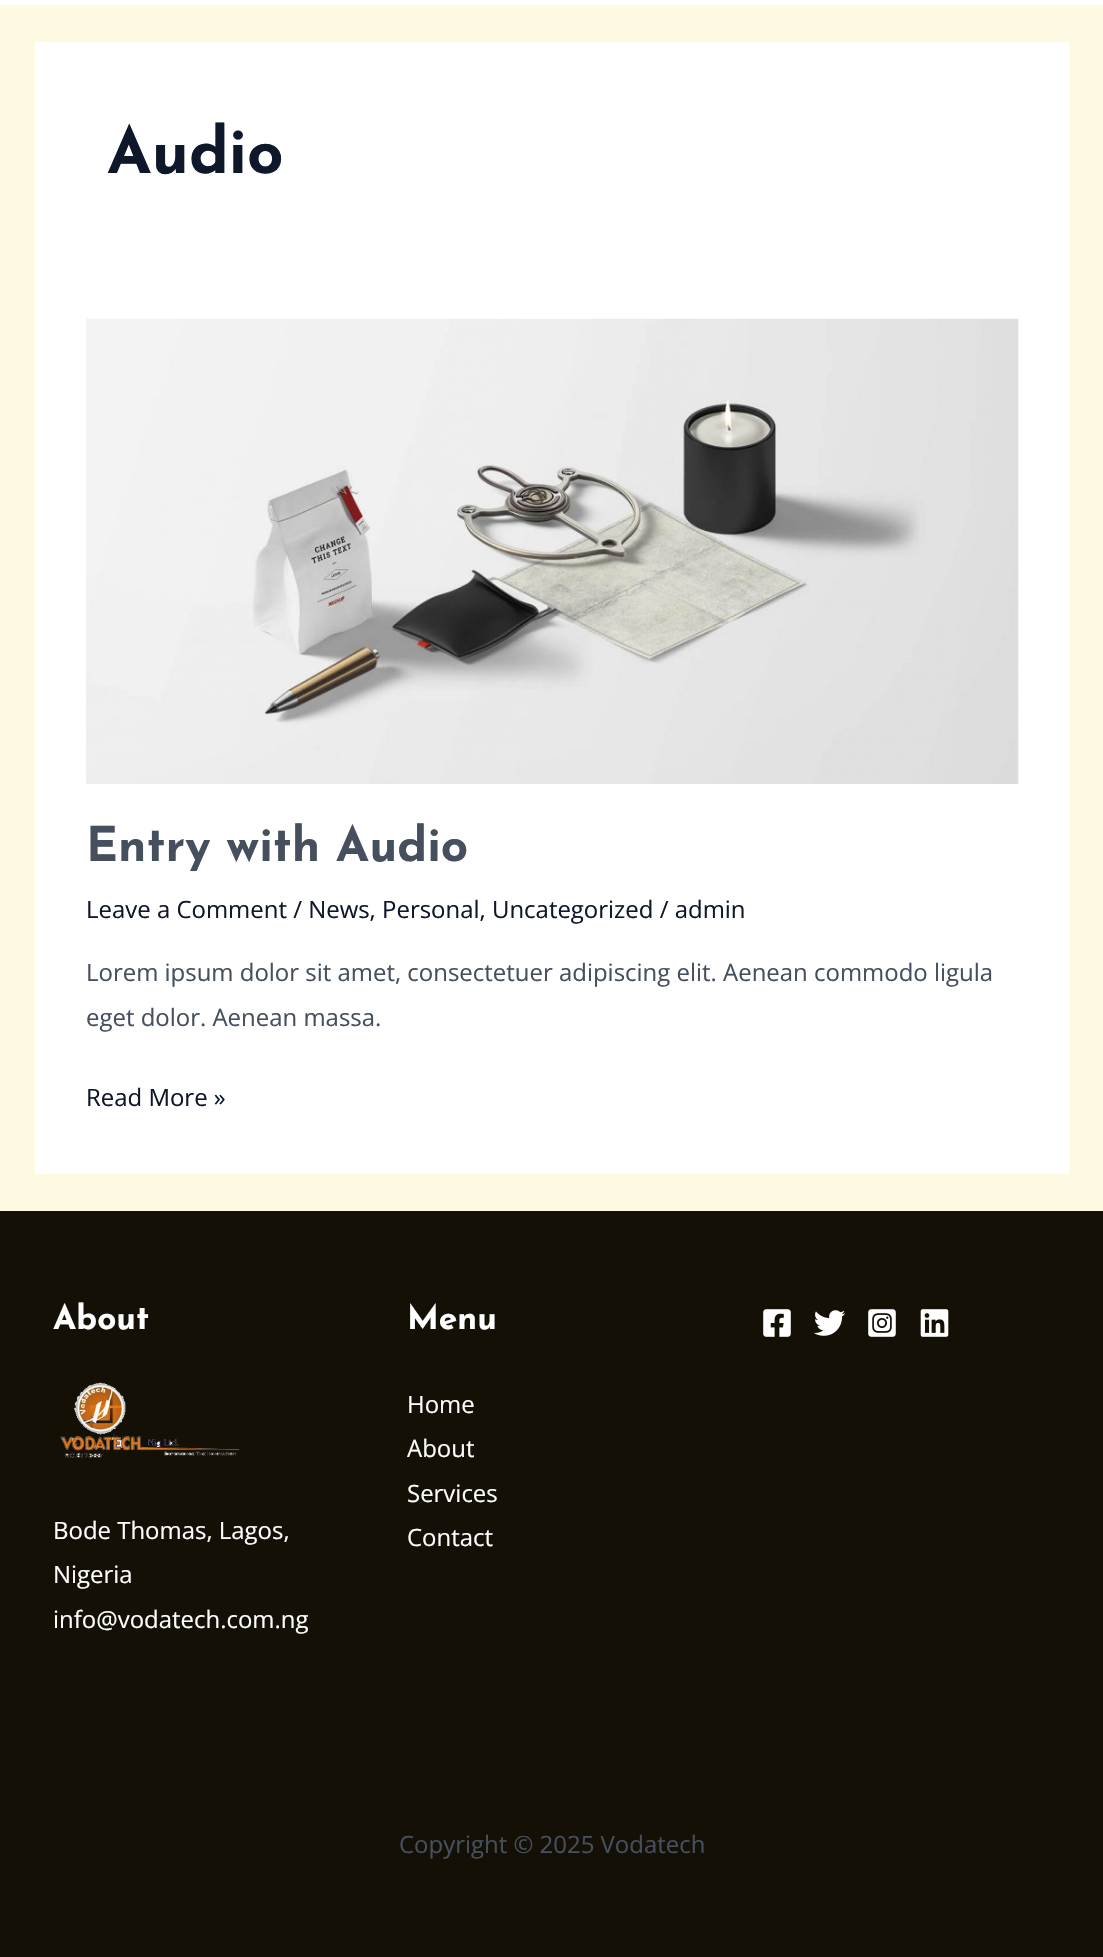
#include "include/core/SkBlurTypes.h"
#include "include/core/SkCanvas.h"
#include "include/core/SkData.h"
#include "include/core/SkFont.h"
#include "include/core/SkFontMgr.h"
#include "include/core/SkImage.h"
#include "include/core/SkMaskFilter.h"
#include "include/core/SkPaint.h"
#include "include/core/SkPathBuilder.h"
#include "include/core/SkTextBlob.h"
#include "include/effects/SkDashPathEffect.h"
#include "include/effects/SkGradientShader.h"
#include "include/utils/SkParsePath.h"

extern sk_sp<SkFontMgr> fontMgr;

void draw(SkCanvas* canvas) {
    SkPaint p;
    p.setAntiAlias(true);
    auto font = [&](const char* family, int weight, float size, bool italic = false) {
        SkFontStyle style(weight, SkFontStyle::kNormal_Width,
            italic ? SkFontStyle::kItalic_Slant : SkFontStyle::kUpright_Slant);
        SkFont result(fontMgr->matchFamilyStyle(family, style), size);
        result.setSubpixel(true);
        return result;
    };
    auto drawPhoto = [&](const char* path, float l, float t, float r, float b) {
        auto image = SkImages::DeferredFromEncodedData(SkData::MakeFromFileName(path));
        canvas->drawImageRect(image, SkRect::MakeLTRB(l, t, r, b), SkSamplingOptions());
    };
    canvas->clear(0xFFFEF9E1);
    p.setColor(0xFFFFFFFF);
    canvas->drawRect(SkRect::MakeLTRB(0, 0, 1103, 5), p);
    canvas->drawRect(SkRect::MakeLTRB(35, 42, 1069, 1174), p);
    auto font1 = font("Josefin Sans", 100, 64);
    p.setColor(0xFF0F172A);
    canvas->drawString("Audio", 107, 173, font1, p);
    drawPhoto("media/1.png", 86, 318, 1019, 784);
    auto font2 = font("Josefin Sans", 100, 48);
    p.setColor(0xFF454F5E);
    canvas->drawString("Entry with Audio", 86, 861, font2, p);
    auto font3 = font("Open Sans", 400, 23.95f);
    p.setColor(0xFF0F172A);
    canvas->drawString("Leave a Comment / News, Personal, Uncategorized / admin", 86, 918, font3, p);
    p.setColor(0xFF454F5E);
    canvas->drawString("Lorem ipsum dolor sit amet, consectetuer adipiscing elit. Aenean commodo ligula", 86, 981, font3, p);
    canvas->drawString("eget dolor. Aenean massa.", 86, 1026, font3, p);
    p.setColor(0xFF0F172A);
    canvas->drawString("Read More »", 86, 1106, font3, p);
    p.setColor(0xFF141006);
    canvas->drawRect(SkRect::MakeLTRB(0, 1211, 1103, 1747), p);
    auto font4 = font("Josefin Sans", 100, 33.5f);
    p.setColor(0xFFFFFFFF);
    canvas->drawString("About", 53, 1329, font4, p);
    drawPhoto("media/2.png", 60, 1382, 240, 1458);
    {
        const struct { const char* s; float x, y; } items[] = {
            {"Bode Thomas, Lagos,", 53, 1539},
            {"Nigeria", 53, 1583},
            {"info@vodatech.com.ng", 53, 1628},
        };
        for (auto [s, x, y] : items) {
            canvas->drawString(s, x, y, font3, p);
        }
    }
    canvas->drawString("Menu", 407, 1329, font4, p);
    {
        const struct { const char* s; float x, y; } items[] = {
            {"Home", 407, 1413},
            {"About", 407, 1457},
            {"Services", 407, 1502},
            {"Contact", 407, 1546},
        };
        for (auto [s, x, y] : items) {
            canvas->drawString(s, x, y, font3, p);
        }
    }
    drawPhoto("media/3.png", 763, 1309, 791, 1337);
    drawPhoto("media/4.png", 814, 1310, 845, 1336);
    drawPhoto("media/5.png", 868, 1309, 896, 1337);
    drawPhoto("media/6.png", 920, 1309, 949, 1337);
    p.setColor(0xFF141006);
    canvas->drawRect(SkRect::MakeLTRB(0, 1747, 1103, 1957), p);
    p.setColor(0xFF454F5E);
    canvas->drawString("Copyright © 2025 Vodatech", 399, 1853, font3, p);
}
